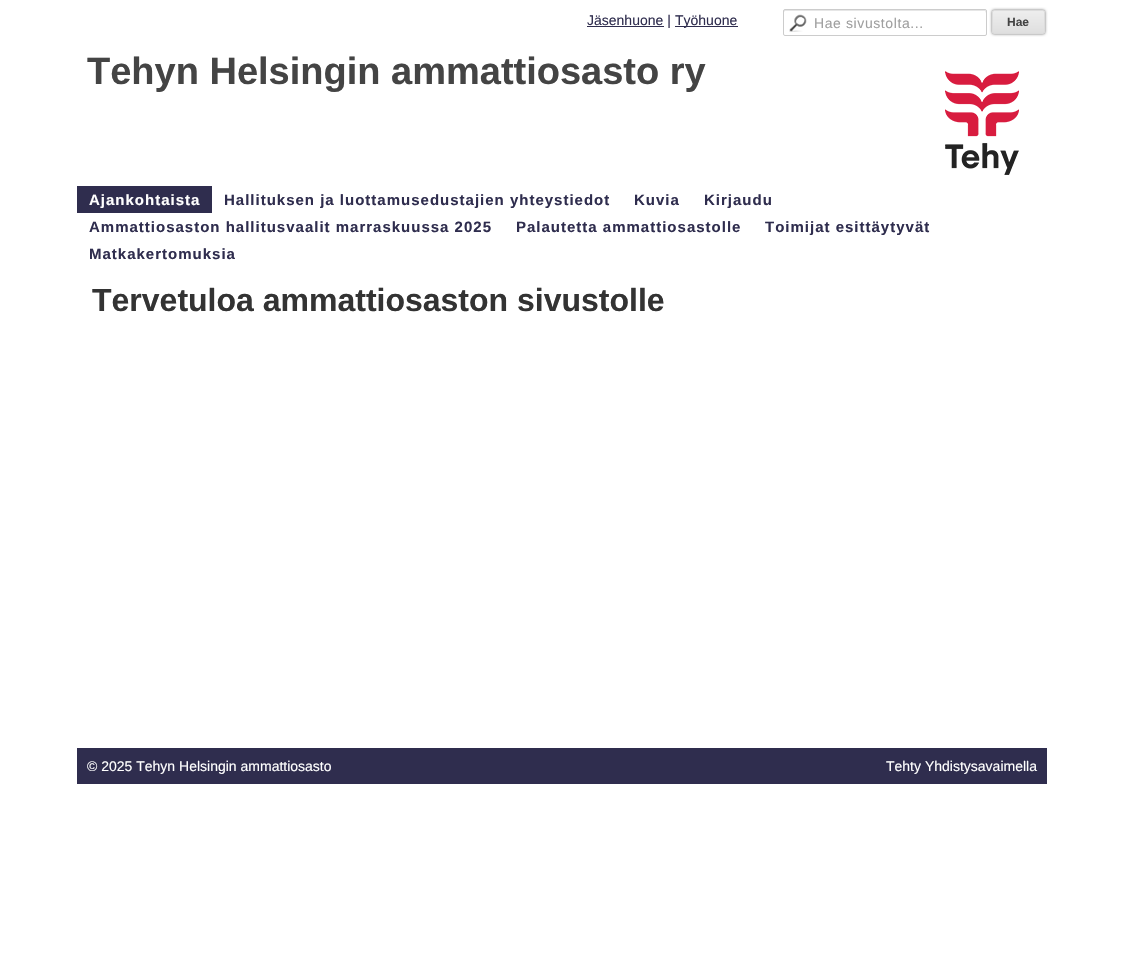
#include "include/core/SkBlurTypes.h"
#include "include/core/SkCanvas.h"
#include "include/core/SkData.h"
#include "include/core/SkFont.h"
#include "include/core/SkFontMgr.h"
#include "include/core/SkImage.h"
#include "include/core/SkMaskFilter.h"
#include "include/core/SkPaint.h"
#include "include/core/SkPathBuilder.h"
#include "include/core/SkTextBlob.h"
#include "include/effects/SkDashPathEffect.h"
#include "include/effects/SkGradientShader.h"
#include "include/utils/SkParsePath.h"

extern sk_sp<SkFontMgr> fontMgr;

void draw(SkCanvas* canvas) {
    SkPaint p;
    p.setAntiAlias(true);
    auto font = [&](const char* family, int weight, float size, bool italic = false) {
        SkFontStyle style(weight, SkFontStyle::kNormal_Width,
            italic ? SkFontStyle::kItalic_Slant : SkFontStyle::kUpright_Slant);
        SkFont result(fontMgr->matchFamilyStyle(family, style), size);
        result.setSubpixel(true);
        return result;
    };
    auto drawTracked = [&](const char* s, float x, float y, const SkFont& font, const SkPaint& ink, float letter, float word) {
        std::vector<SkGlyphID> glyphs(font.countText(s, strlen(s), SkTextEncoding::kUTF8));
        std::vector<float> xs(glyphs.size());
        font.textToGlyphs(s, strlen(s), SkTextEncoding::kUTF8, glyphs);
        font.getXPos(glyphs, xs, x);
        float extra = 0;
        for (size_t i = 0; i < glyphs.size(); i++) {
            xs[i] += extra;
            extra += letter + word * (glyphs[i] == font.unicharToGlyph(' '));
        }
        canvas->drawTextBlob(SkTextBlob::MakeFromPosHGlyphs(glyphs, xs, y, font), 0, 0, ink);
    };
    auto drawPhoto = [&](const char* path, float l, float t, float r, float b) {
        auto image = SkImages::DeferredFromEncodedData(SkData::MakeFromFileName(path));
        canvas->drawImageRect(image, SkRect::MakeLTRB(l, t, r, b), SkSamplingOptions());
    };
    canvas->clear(0xFFFFFFFF);
    p.setColor(0xFF2F2D4E);
    canvas->drawRect(SkRect::MakeLTRB(587, 26, 664, 27), p);
    auto font1 = font("Liberation Sans", 400, 14);
    canvas->drawString("Jäsenhuone |", 587, 25, font1, p);
    canvas->drawRect(SkRect::MakeLTRB(675, 26, 738, 27), p);
    canvas->drawString("Työhuone", 675, 25, font1, p);
    drawPhoto("media/1.png", 789, 14, 807, 32);
    p.setColor(0xFFE6E6E6);
    canvas->drawPath(SkPathBuilder().moveTo(785, 11).lineTo(985, 11).lineTo(986, 13).cubicTo(986, 12, 986, 10, 985, 10).lineTo(784, 10).lineTo(784, 12).close().detach(), p);
    p.setStyle(SkPaint::kStroke_Style);
    p.setStrokeWidth(1);
    p.setColor(0xFFCCCCCC);
    canvas->drawRoundRect(SkRect::MakeLTRB(783.5f, 9.5f, 986.5f, 35.5f), 1.5f, 1.5f, p);
    p.setStyle(SkPaint::kFill_Style);
    p.setColor(0xFF9F9F9F);
    drawTracked("Hae sivustolta...", 814, 28, font1, p, 0.6f, 0);
    p.setColor(0xFF666666);
    p.setMaskFilter(SkMaskFilter::MakeBlur(kNormal_SkBlurStyle, 1.5f));
    canvas->drawRoundRect(SkRect::MakeLTRB(992, 10, 1045, 34), 2, 2, p);
    p.setMaskFilter(nullptr);
    canvas->save();
    canvas->clipPath(SkPathBuilder().moveTo(994, 10).lineTo(1043, 10).cubicTo(1044, 10, 1045, 11, 1045, 12).lineTo(1045, 32).cubicTo(1045, 33, 1044, 34, 1043, 34).lineTo(994, 34).cubicTo(993, 34, 992, 33, 992, 32).lineTo(992, 12).cubicTo(992, 11, 993, 10, 994, 10).close().detach(), true);
    {
        const SkColor colors[] = {0xFFEDEDED, 0xFFDFDFDF};
        const float stops[] = {0.05f, 1};
        const SkPoint ends[] = {{993, 11}, {993, 33}};
        p.setShader(SkGradientShader::MakeLinear(ends, colors, stops, 2, SkTileMode::kClamp));
        p.setAlpha(255);
    }
    canvas->drawRect(SkRect::MakeLTRB(992, 11, 1045, 33), p);
    canvas->restore();
    p.setStyle(SkPaint::kStroke_Style);
    p.setShader(nullptr);
    p.setColor(0xFFDCDCDC);
    canvas->drawRoundRect(SkRect::MakeLTRB(992.5f, 10.5f, 1044.5f, 33.5f), 1.5f, 1.5f, p);
    auto font2 = font("Liberation Sans", 700, 12);
    p.setStyle(SkPaint::kFill_Style);
    p.setColor(0xFF444444);
    canvas->drawString("Hae", 1007, 26, font2, p);
    drawPhoto("media/2.png", 945, 71, 1019, 175);
    auto font3 = font("Liberation Sans", 700, 38);
    canvas->drawString("Tehyn Helsingin ammattiosasto ry", 87, 84, font3, p);
    p.setColor(0xFF2F2D4E);
    canvas->drawRect(SkRect::MakeLTRB(77, 186, 212, 213), p);
    auto font4 = font("Liberation Sans", 700, 15);
    p.setColor(0xFFFFFFFF);
    drawTracked("Ajankohtaista", 89, 205, font4, p, 1, 0);
    p.setColor(0xFF2F2D4E);
    {
        const struct { const char* s; float x, y; } items[] = {
            {"Hallituksen ja luottamusedustajien yhteystiedot", 224, 205},
            {"Kuvia", 634, 205},
            {"Kirjaudu", 704, 205},
            {"Ammattiosaston hallitusvaalit marraskuussa 2025", 89, 232},
            {"Palautetta ammattiosastolle", 516, 232},
            {"Toimijat esittäytyvät", 765, 232},
            {"Matkakertomuksia", 89, 259},
        };
        for (auto [s, x, y] : items) {
            drawTracked(s, x, y, font4, p, 1, 0);
        }
    }
    auto font5 = font("Liberation Sans", 700, 32);
    p.setColor(0xFF333333);
    canvas->drawString("Tervetuloa ammattiosaston sivustolle", 92, 311, font5, p);
    p.setColor(0xFF2F2D4E);
    canvas->drawRect(SkRect::MakeLTRB(77, 748, 1047, 784), p);
    p.setColor(0xFFFFFFFF);
    canvas->drawString("© 2025 Tehyn Helsingin ammattiosasto", 87, 771, font1, p);
    canvas->drawString("Tehty Yhdistysavaimella", 886, 771, font1, p);
}
